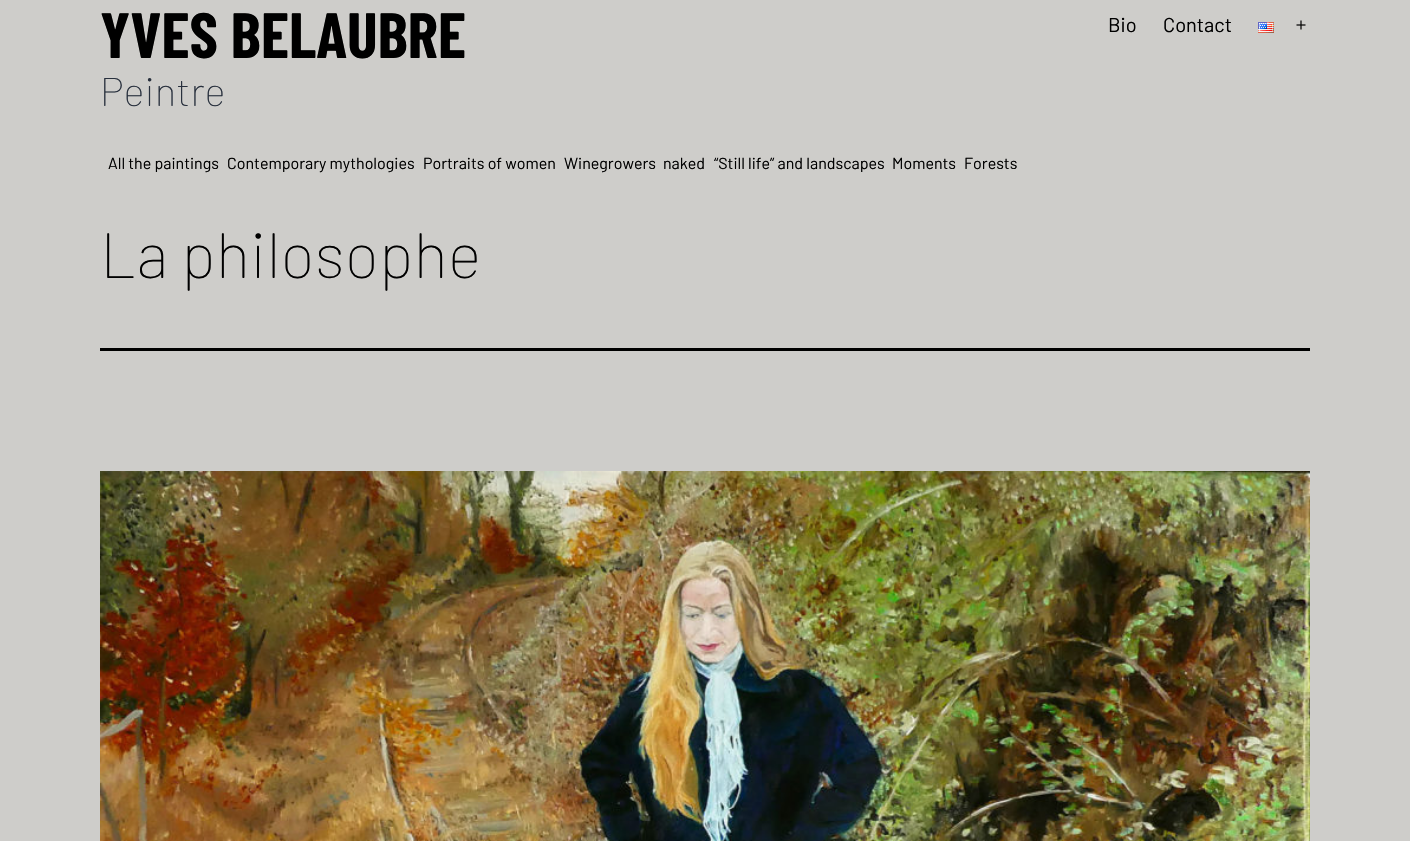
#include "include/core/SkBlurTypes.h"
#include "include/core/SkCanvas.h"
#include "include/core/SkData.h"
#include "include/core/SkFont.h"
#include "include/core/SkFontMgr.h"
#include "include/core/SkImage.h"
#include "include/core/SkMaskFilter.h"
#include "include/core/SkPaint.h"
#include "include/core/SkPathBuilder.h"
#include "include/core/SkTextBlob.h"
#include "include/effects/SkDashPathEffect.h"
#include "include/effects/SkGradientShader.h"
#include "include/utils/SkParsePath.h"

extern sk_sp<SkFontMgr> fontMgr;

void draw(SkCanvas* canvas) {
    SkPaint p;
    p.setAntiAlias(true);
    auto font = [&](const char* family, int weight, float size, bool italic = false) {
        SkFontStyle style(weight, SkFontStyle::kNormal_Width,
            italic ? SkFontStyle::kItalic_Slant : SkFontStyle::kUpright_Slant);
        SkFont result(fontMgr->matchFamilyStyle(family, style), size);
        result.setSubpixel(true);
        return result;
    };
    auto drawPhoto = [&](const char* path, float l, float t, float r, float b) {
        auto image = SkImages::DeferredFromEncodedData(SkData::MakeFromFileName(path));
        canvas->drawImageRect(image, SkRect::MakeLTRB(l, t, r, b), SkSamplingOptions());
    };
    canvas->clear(0xFFCECDCA);
    auto font1 = font("Barlow Condensed", 700, 64);
    p.setColor(0xFF000000);
    canvas->drawString("YVES BELAUBRE", 100, 58, font1, p);
    auto font2 = font("Barlow", 100, 40);
    p.setColor(0xFF28303D);
    canvas->drawString("Peintre", 100, 106, font2, p);
    auto font3 = font("Barlow", 400, 20);
    p.setColor(0xFF000000);
    canvas->drawString("Bio", 1108, 32, font3, p);
    canvas->drawString("Contact", 1163, 32, font3, p);
    drawPhoto("media/1.png", 1258, 22, 1274, 33);
    drawPhoto("media/2.png", 1296, 20, 1306, 30);
    auto font4 = font("Barlow", 400, 16);
    {
        const struct { const char* s; float x, y; } items[] = {
            {"All the paintings", 108, 169},
            {"Contemporary mythologies", 227, 169},
            {"Portraits of women", 423, 169},
            {"Winegrowers", 564, 169},
            {"naked", 663, 169},
            {"“Still life” and landscapes", 714, 169},
            {"Moments", 892, 169},
            {"Forests", 964, 169},
        };
        for (auto [s, x, y] : items) {
            canvas->drawString(s, x, y, font4, p);
        }
    }
    canvas->drawRect(SkRect::MakeLTRB(100, 348, 1310, 351), p);
    auto font5 = font("Barlow", 100, 64);
    canvas->drawString("La philosophe", 100, 278, font5, p);
    drawPhoto("media/3.png", 100, 471, 1310, 841);
}
